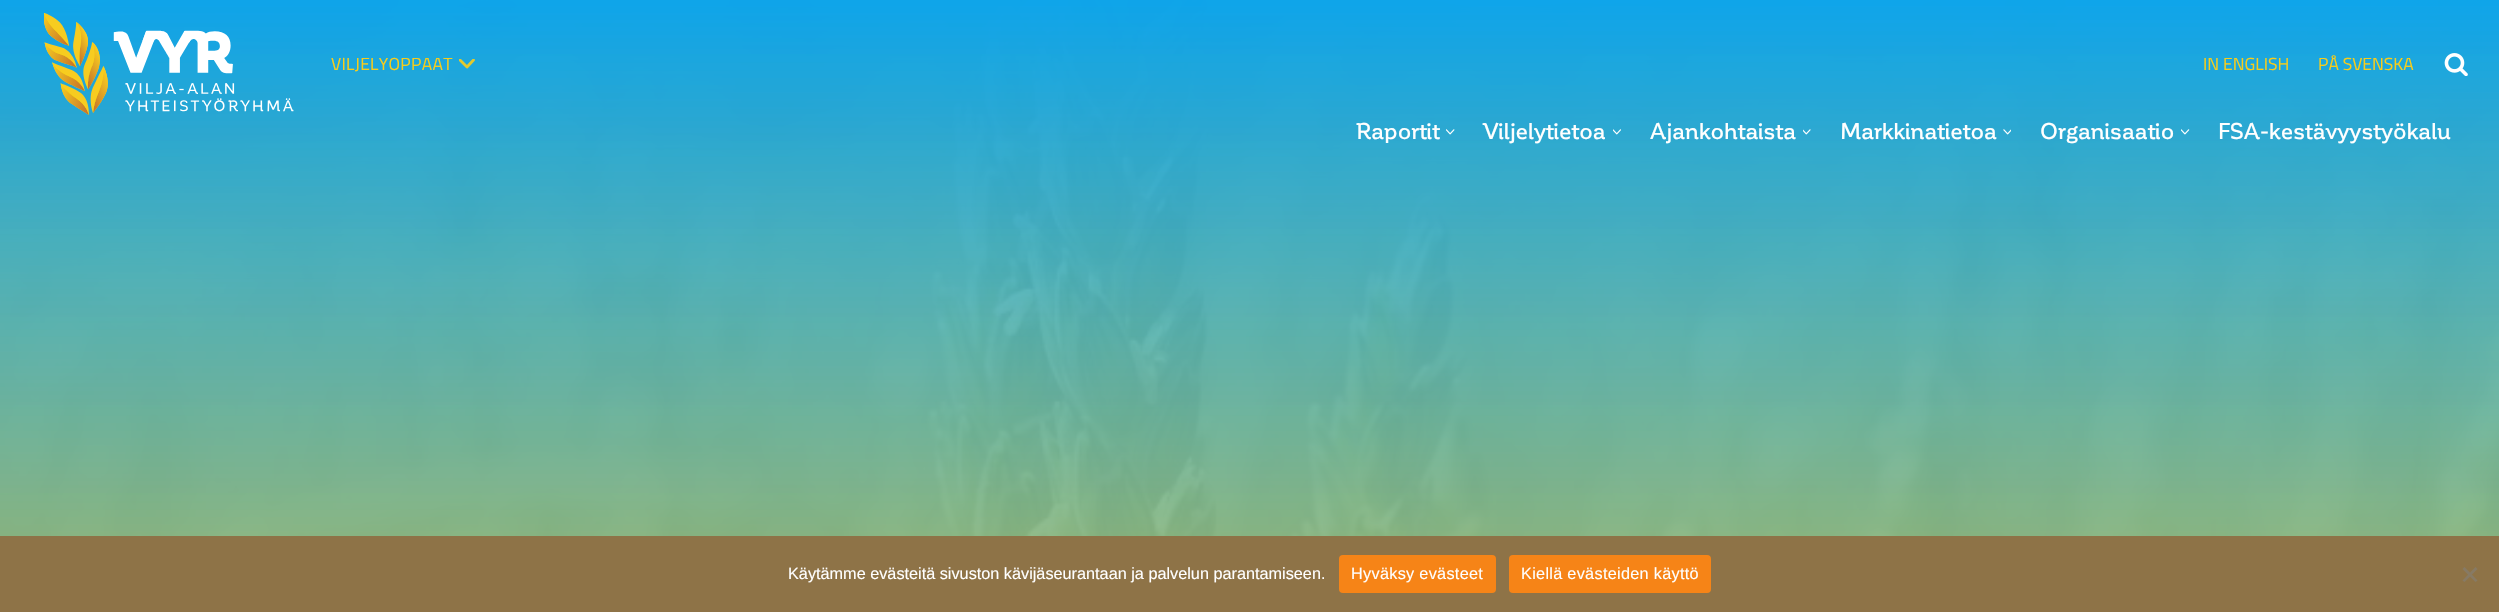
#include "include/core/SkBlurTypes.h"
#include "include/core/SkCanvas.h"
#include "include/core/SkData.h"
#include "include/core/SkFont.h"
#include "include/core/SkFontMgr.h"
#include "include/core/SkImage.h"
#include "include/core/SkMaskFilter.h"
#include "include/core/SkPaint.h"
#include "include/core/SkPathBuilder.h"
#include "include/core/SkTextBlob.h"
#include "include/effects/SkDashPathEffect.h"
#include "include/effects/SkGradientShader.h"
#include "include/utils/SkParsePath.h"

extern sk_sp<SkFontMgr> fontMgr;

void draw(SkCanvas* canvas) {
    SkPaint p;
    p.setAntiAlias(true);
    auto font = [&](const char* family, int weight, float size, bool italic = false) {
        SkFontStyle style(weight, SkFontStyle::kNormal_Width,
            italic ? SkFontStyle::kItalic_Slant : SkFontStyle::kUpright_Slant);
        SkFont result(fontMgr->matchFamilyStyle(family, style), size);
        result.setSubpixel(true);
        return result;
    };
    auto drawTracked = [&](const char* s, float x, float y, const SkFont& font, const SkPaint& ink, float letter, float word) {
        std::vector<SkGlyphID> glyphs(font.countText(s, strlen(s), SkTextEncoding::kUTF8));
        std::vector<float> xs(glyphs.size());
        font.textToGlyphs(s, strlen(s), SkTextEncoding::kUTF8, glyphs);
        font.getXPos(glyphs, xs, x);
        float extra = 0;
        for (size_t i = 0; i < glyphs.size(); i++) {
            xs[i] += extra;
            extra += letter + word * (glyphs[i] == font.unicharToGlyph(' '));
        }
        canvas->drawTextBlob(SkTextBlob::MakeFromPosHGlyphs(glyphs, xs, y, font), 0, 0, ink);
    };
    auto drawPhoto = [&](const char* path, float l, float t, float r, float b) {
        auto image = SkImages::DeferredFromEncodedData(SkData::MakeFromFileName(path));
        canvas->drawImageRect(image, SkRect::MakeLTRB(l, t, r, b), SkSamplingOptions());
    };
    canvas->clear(0xFFFFFFFF);
    drawPhoto("media/1.png", 0, 0, 2499, 536);
    drawPhoto("media/2.png", 44, 13, 294, 115);
    canvas->save();
    canvas->clipRect(SkRect::MakeLTRB(459, 59, 475, 69));
    p.setStyle(SkPaint::kStroke_Style);
    p.setStrokeWidth(2.8f);
    p.setStrokeCap(SkPaint::kRound_Cap);
    p.setStrokeJoin(SkPaint::kRound_Join);
    p.setColor(0xFFE2C92E);
    canvas->drawPath(SkPathBuilder().moveTo(473.5f, 60).lineTo(467, 67).lineTo(460, 60).detach(), p);
    canvas->restore();
    auto font1 = font("Titillium Web", 400, 17.5f);
    p.setStyle(SkPaint::kFill_Style);
    p.setColor(0xFFF8CD1B);
    drawTracked("VILJELYOPPAAT", 331, 70, font1, p, 0.3f, 0);
    canvas->drawString("IN ENGLISH", 2203, 70, font1, p);
    canvas->drawString("PÅ SVENSKA", 2318, 70, font1, p);
    drawPhoto("media/3.png", 2444, 53, 2468, 76);
    auto font2 = font("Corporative", 500, 22.5f);
    p.setColor(0xFFFFFFFF);
    canvas->drawString("Raportit", 1356, 139, font2, p);
    drawPhoto("media/4.png", 1446, 129, 1455, 135);
    canvas->drawString("Viljelytietoa", 1483, 139, font2, p);
    drawPhoto("media/5.png", 1613, 129, 1621, 135);
    canvas->drawString("Ajankohtaista", 1650, 139, font2, p);
    drawPhoto("media/6.png", 1803, 129, 1811, 135);
    canvas->drawString("Markkinatietoa", 1840, 139, font2, p);
    drawPhoto("media/7.png", 2003, 129, 2011, 135);
    canvas->drawString("Organisaatio", 2040, 139, font2, p);
    drawPhoto("media/8.png", 2181, 129, 2190, 135);
    canvas->drawString("FSA-kestävyystyökalu", 2218, 139, font2, p);
    p.setColor(0xFF8E7347);
    canvas->drawRect(SkRect::MakeLTRB(0, 536, 2499, 612), p);
    auto font3 = font("Liberation Sans", 400, 16.25f);
    p.setColor(0xFFFFFFFF);
    canvas->drawString("Käytämme evästeitä sivuston kävijäseurantaan ja palvelun parantamiseen.", 788, 579, font3, p);
    p.setColor(0xFFF68417);
    canvas->drawRoundRect(SkRect::MakeLTRB(1339, 555, 1496, 593), 4, 4, p);
    p.setColor(0xFFFFFFFF);
    drawTracked("Hyväksy evästeet", 1351, 579, font3, p, 0.3f, 0);
    p.setColor(0xFFF68417);
    canvas->drawRoundRect(SkRect::MakeLTRB(1509, 555, 1711, 593), 4, 4, p);
    p.setColor(0xFFFFFFFF);
    drawTracked("Kiellä evästeiden käyttö", 1521, 579, font3, p, 0.3f, 0);
    p.setColor(0xFF877A64);
    canvas->drawPath(SkPathBuilder().moveTo(2475.5f, 567).lineTo(2477.5f, 569).lineTo(2464.5f, 582).lineTo(2462.5f, 580.5f).close().detach(), p);
    canvas->drawPath(SkPathBuilder().moveTo(2462.5f, 569).lineTo(2464.5f, 567).lineTo(2477.5f, 580.5f).lineTo(2475.5f, 582).close().detach(), p);
}
